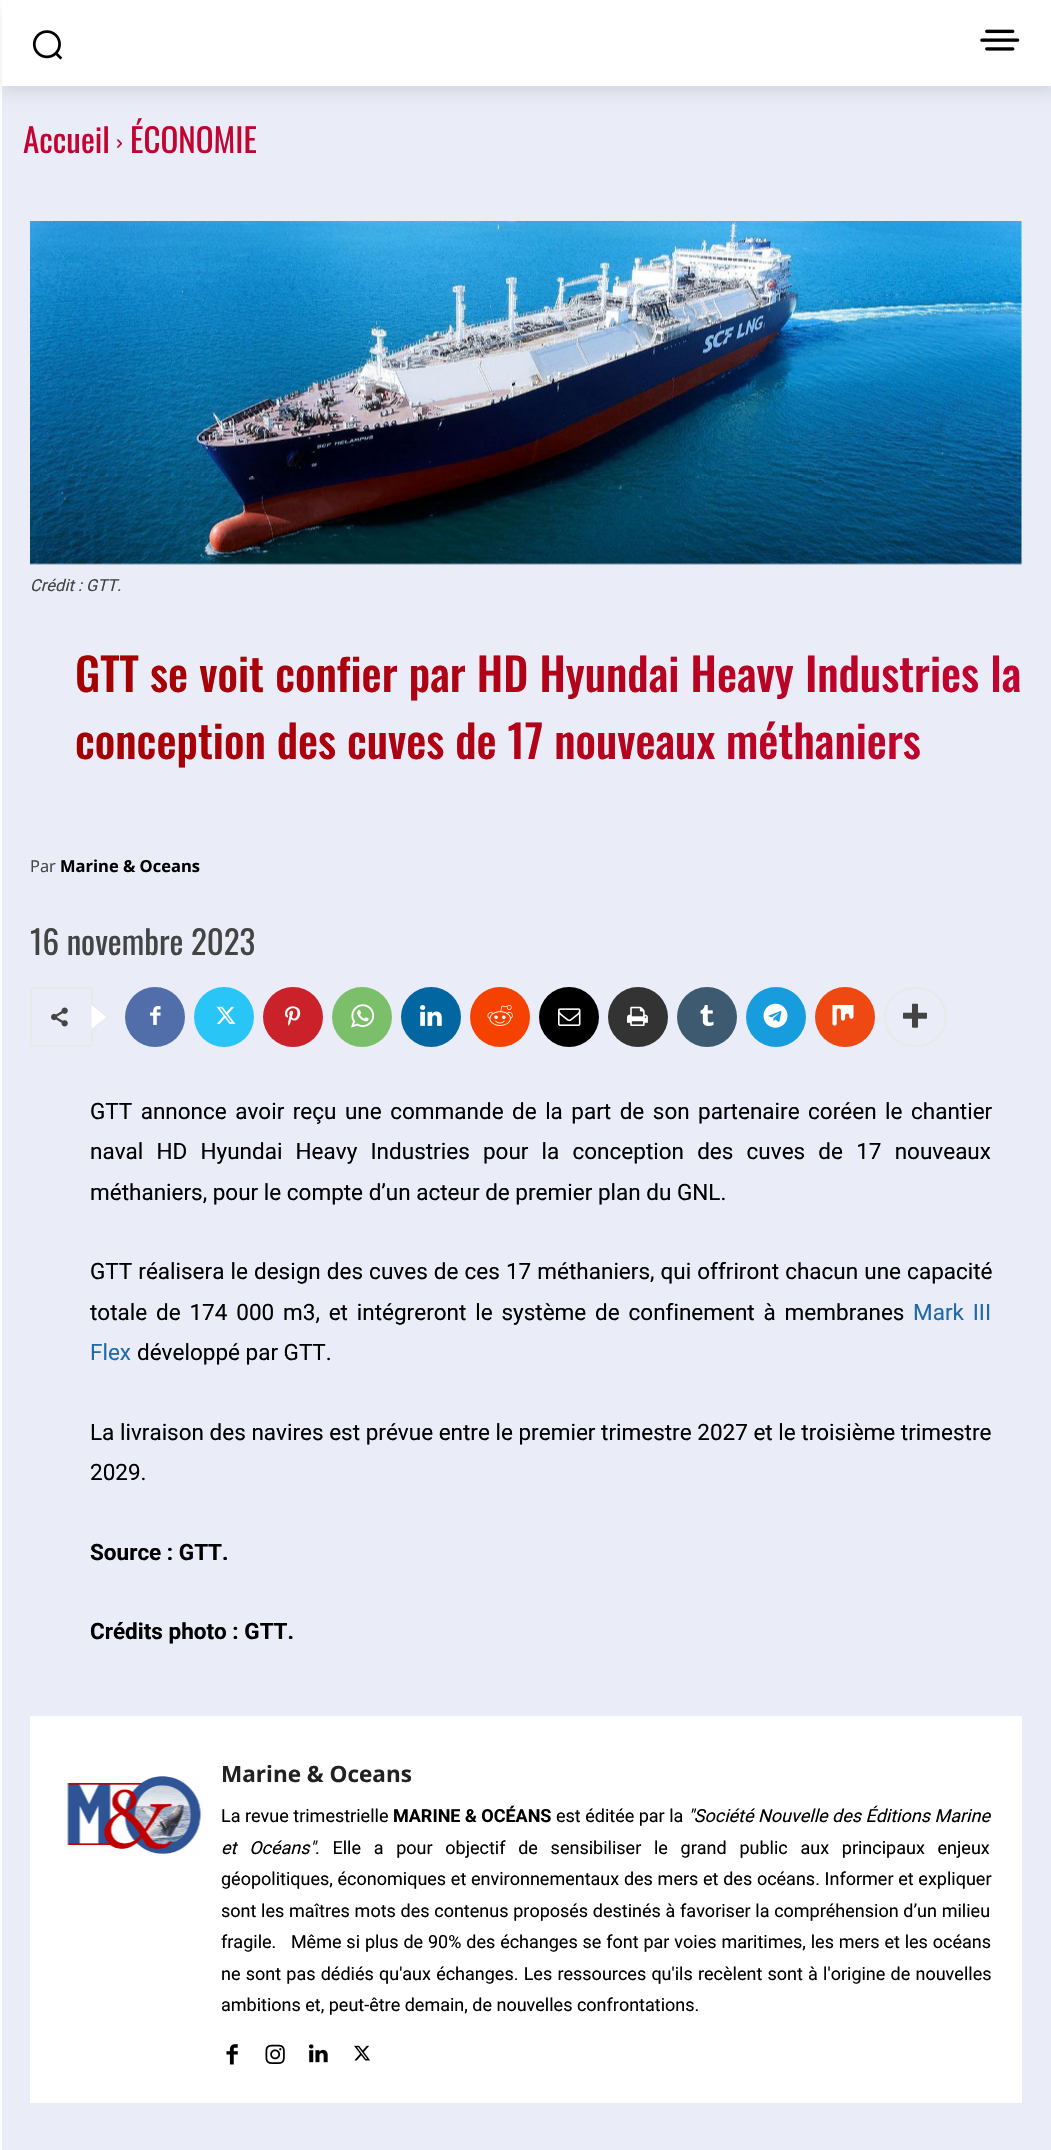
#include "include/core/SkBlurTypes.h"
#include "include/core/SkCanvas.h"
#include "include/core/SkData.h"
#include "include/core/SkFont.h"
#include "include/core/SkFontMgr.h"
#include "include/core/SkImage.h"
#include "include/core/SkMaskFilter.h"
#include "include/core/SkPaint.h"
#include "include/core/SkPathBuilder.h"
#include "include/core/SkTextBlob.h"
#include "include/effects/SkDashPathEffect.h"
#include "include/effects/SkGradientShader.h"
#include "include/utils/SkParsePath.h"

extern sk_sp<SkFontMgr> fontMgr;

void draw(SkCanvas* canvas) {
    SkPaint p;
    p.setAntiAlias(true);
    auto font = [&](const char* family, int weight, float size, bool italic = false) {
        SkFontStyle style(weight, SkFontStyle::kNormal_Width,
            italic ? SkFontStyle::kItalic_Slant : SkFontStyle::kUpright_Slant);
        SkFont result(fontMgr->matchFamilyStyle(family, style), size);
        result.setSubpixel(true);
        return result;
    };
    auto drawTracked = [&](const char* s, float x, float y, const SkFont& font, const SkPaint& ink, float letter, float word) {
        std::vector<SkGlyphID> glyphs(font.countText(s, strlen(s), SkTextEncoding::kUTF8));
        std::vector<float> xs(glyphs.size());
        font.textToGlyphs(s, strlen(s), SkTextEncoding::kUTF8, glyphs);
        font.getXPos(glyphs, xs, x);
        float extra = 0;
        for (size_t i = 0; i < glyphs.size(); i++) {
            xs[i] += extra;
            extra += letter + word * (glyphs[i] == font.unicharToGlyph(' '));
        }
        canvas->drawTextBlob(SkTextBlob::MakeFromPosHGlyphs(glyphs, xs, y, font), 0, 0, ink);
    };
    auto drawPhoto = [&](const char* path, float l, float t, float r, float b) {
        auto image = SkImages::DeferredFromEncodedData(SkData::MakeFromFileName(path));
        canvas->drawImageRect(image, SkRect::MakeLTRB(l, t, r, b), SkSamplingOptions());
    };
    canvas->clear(0xFFFFFFFF);
    drawPhoto("media/1.png", 32, 30, 63, 60);
    drawPhoto("media/2.png", 980, 29, 1020, 51);
    p.setColor(0xFFEAECF8);
    canvas->drawRect(SkRect::MakeLTRB(2, 86, 1051, 2150), p);
    canvas->save();
    canvas->clipPath(SkPathBuilder(SkPathFillType::kEvenOdd).moveTo(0, 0).lineTo(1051, 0).lineTo(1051, 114).lineTo(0, 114).close().moveTo(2, 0).lineTo(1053, 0).lineTo(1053, 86).lineTo(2, 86).close().detach(), true);
    p.setColor(0x14000000);
    p.setMaskFilter(SkMaskFilter::MakeBlur(kNormal_SkBlurStyle, 6));
    canvas->drawRect(SkRect::MakeLTRB(2, 9, 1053, 95), p);
    p.setMaskFilter(nullptr);
    canvas->restore();
    auto font1 = font("Oswald", 400, 33);
    p.setColor(0xFFC20431);
    canvas->drawString("Accueil", 23, 153, font1, p);
    drawPhoto("media/3.png", 117, 139, 123, 148);
    canvas->drawString("ÉCONOMIE", 130, 153, font1, p);
    drawPhoto("media/4.png", 30, 221, 1022, 565);
    auto font2 = font("Roboto", 400, 16.5f, true);
    p.setColor(0xFF444444);
    canvas->drawString("Crédit : GTT.", 30, 591, font2, p);
    auto font3 = font("Oswald", 500, 45);
    {
        const SkColor colors[] = {0xFFC20431, 0xFFA30101};
        const float stops[] = {0, 1};
        const SkPoint ends[] = {{1022, 705}, {75, 705}};
        p.setShader(SkGradientShader::MakeLinear(ends, colors, stops, 2, SkTileMode::kClamp));
        p.setAlpha(255);
    }
    drawTracked("GTT se voit confier par HD Hyundai Heavy Industries la", 75, 692, font3, p, 0, 0.25f);
    canvas->drawString("conception des cuves de 17 nouveaux méthaniers", 75, 759, font3, p);
    auto font4 = font("Open Sans", 400, 16.5f);
    p.setShader(nullptr);
    p.setColor(0xFF444444);
    canvas->drawString("Par", 30, 872, font4, p);
    auto font5 = font("Open Sans", 700, 16.5f);
    p.setColor(0xFF000000);
    canvas->drawString("Marine & Oceans", 60, 872, font5, p);
    p.setColor(0xFF444444);
    canvas->drawString("16 novembre 2023", 30, 955, font1, p);
    p.setStyle(SkPaint::kStroke_Style);
    p.setStrokeWidth(2);
    p.setColor(0xFFE9E9E9);
    canvas->drawRoundRect(SkRect::MakeLTRB(31, 988, 92, 1046), 2, 2, p);
    p.setStyle(SkPaint::kFill_Style);
    canvas->drawPath(SkPathBuilder().moveTo(91.5f, 1030.5f).lineTo(91.5f, 1003.5f).lineTo(108, 1017).close().detach(), p);
    drawPhoto("media/5.png", 51, 1007, 68, 1027);
    p.setColor(0xFFFFFFFF);
    canvas->drawPath(SkPathBuilder().moveTo(91.5f, 1029).lineTo(91.5f, 1005).lineTo(106.5f, 1017).close().detach(), p);
    p.setColor(0xFF516EAB);
    canvas->drawCircle(155, 1017, 30, p);
    drawPhoto("media/6.png", 150, 1006, 161, 1025);
    p.setColor(0xFF29C5F6);
    canvas->drawCircle(224, 1017, 30, p);
    drawPhoto("media/7.png", 216, 1006, 236, 1024);
    p.setColor(0xFFCA212A);
    canvas->drawCircle(293, 1017, 30, p);
    drawPhoto("media/8.png", 285, 1006, 301, 1026);
    p.setColor(0xFF7BBF6A);
    canvas->drawCircle(362, 1017, 30, p);
    drawPhoto("media/9.png", 351, 1004, 375, 1028);
    p.setColor(0xFF0266A0);
    canvas->drawCircle(431, 1017, 30, p);
    drawPhoto("media/10.png", 420, 1005, 442, 1026);
    p.setColor(0xFFF54200);
    canvas->drawCircle(500, 1017, 30, p);
    drawPhoto("media/11.png", 487, 1005, 513, 1026);
    p.setColor(0xFF000000);
    canvas->drawCircle(569, 1017, 30, p);
    drawPhoto("media/12.png", 558, 1008, 581, 1026);
    p.setColor(0xFF333333);
    canvas->drawCircle(638, 1017, 30, p);
    drawPhoto("media/13.png", 627, 1006, 648, 1026);
    p.setColor(0xFF3E5A70);
    canvas->drawCircle(707, 1017, 30, p);
    drawPhoto("media/14.png", 700, 1005, 714, 1026);
    p.setColor(0xFF179CDE);
    canvas->drawCircle(776, 1017, 30, p);
    drawPhoto("media/15.png", 763, 1003, 788, 1028);
    p.setColor(0xFFEE4813);
    canvas->drawCircle(845, 1017, 30, p);
    drawPhoto("media/16.png", 832, 1005, 854, 1026);
    p.setStyle(SkPaint::kStroke_Style);
    p.setColor(0xFFE9E9E9);
    canvas->drawRoundRect(SkRect::MakeLTRB(885, 988, 946, 1046), 29, 29, p);
    drawPhoto("media/17.png", 903, 1003, 927, 1028);
    auto font6 = font("Roboto", 400, 22.5f);
    p.setStyle(SkPaint::kFill_Style);
    p.setColor(0xFF000000);
    drawTracked("GTT annonce avoir reçu une commande de la part de son partenaire coréen le chantier", 90, 1119, font6, p, 0, 2.9f);
    drawTracked("naval HD Hyundai Heavy Industries pour la conception des cuves de 17 nouveaux", 90, 1159, font6, p, 0, 7.6f);
    canvas->drawString("méthaniers, pour le compte d’un acteur de premier plan du GNL.", 90, 1200, font6, p);
    drawTracked("GTT réalisera le design des cuves de ces 17 méthaniers, qui offriront chacun une capacité", 90, 1279, font6, p, 0, 0.5f);
    drawTracked("totale de 174 000 m3, et intégreront le système de confinement à membranes", 90, 1320, font6, p, 0, 3.25f);
    p.setColor(0xFF206AA7);
    drawTracked("Mark III", 913, 1320, font6, p, 0, 3.25f);
    canvas->drawString("Flex", 90, 1360, font6, p);
    p.setColor(0xFF000000);
    {
        const struct { const char* s; float x, y; } items[] = {
            {"développé par GTT.", 137, 1360},
            {"La livraison des navires est prévue entre le premier trimestre 2027 et le troisième trimestre", 90, 1440},
            {"2029.", 90, 1480},
        };
        for (auto [s, x, y] : items) {
            canvas->drawString(s, x, y, font6, p);
        }
    }
    auto font7 = font("Roboto", 700, 22.5f);
    canvas->drawString("Source : GTT.", 90, 1560, font7, p);
    canvas->drawString("Crédits photo : GTT.", 90, 1639, font7, p);
    p.setColor(0xFFFFFFFF);
    canvas->drawRect(SkRect::MakeLTRB(30, 1716, 1022, 2103), p);
    drawPhoto("media/18.png", 67, 1776, 201, 1854);
    auto font8 = font("Open Sans", 700, 22.5f);
    p.setColor(0xFF222222);
    canvas->drawString("Marine & Oceans", 221, 1782, font8, p);
    auto font9 = font("Roboto", 400, 18);
    p.setColor(0xFF000000);
    canvas->drawString("La revue trimestrielle", 221, 1822, font9, p);
    auto font10 = font("Roboto", 700, 18);
    canvas->drawString("MARINE & OCÉANS", 393, 1822, font10, p);
    canvas->drawString("est éditée par la", 556, 1822, font9, p);
    auto font11 = font("Roboto", 400, 18, true);
    canvas->drawString("\"Société Nouvelle des Éditions Marine", 688, 1822, font11, p);
    drawTracked("et Océans\"", 221, 1854, font11, p, 0, 8.25f);
    drawTracked(". Elle a pour objectif de sensibiliser le grand public aux principaux enjeux", 315, 1854, font9, p, 0, 8.25f);
    drawTracked("géopolitiques, économiques et environnementaux des mers et des océans. Informer et expliquer", 221, 1885, font9, p, 0, 0.25f);
    drawTracked("sont les maîtres mots des contenus proposés destinés à favoriser la compréhension d’un milieu", 221, 1917, font9, p, 0, 0.25f);
    drawTracked("fragile.   Même si plus de 90% des échanges se font par voies maritimes, les mers et les océans", 221, 1948, font9, p, 0, 0.4f);
    drawTracked("ne sont pas dédiés qu'aux échanges. Les ressources qu'ils recèlent sont à l'origine de nouvelles", 221, 1980, font9, p, 0, 0.75f);
    canvas->drawString("ambitions et, peut-être demain, de nouvelles confrontations.", 221, 2011, font9, p);
    drawPhoto("media/19.png", 226, 2044, 238, 2065);
    drawPhoto("media/20.png", 265, 2044, 285, 2064);
    drawPhoto("media/21.png", 309, 2044, 328, 2063);
    drawPhoto("media/22.png", 354, 2045, 370, 2061);
}
